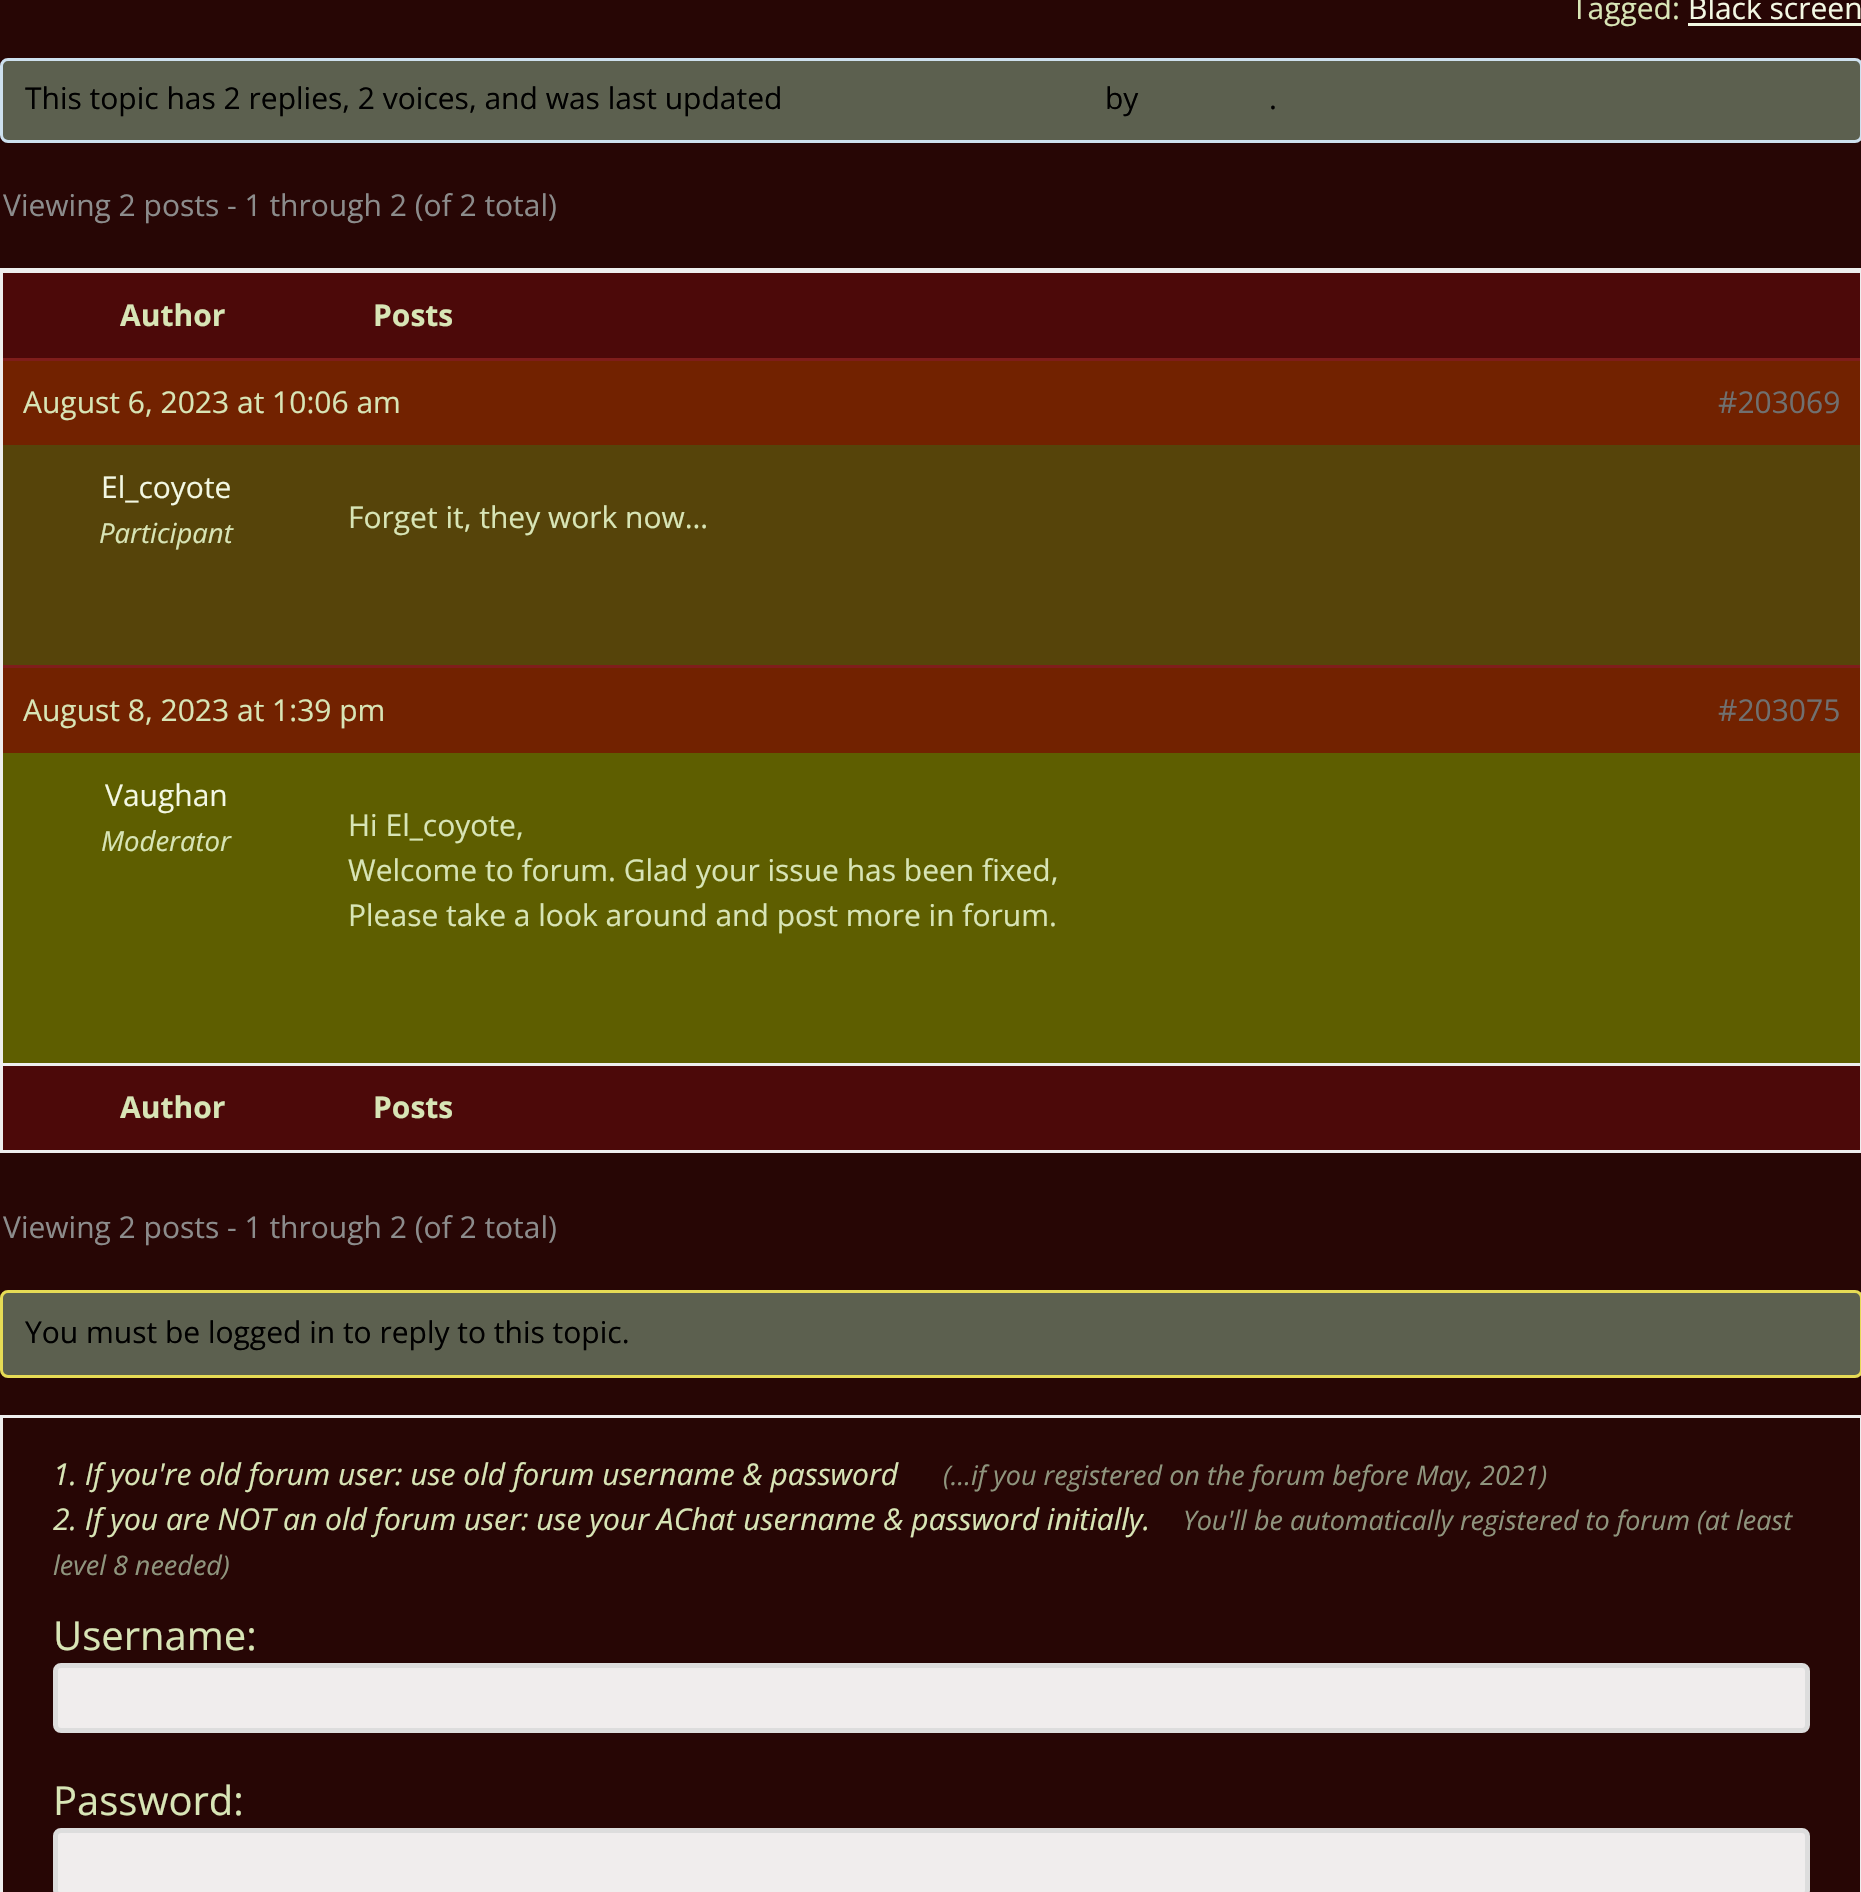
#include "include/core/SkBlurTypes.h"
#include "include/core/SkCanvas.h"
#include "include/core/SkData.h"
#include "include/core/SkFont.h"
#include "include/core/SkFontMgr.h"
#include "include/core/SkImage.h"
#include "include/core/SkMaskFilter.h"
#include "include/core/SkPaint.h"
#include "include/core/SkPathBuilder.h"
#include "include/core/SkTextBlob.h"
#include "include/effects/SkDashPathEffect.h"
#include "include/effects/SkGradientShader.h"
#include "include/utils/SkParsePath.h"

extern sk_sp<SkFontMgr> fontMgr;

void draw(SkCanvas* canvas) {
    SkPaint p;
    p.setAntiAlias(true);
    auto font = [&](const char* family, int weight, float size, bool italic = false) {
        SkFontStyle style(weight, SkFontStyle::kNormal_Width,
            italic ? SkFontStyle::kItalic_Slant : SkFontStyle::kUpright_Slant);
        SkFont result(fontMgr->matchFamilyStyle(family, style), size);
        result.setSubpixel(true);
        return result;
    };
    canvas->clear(0xFF270605);
    auto font1 = font("Open Sans", 400, 30);
    p.setColor(0xFFD8E5B6);
    canvas->drawString("Tagged:", 1571, 19, font1, p);
    p.setColor(0xFFF3F8E3);
    canvas->drawString("Black screen", 1688, 19, font1, p);
    canvas->drawRect(SkRect::MakeLTRB(1688, 23, 1861, 26), p);
    p.setColor(0xFF5C604F);
    canvas->drawRoundRect(SkRect::MakeLTRB(1.5f, 59.5f, 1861.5f, 141.5f), 6.5f, 6.5f, p);
    p.setStyle(SkPaint::kStroke_Style);
    p.setStrokeWidth(3);
    p.setColor(0xFFCEE1EF);
    canvas->drawRoundRect(SkRect::MakeLTRB(1.5f, 59.5f, 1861.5f, 141.5f), 6.5f, 6.5f, p);
    p.setStyle(SkPaint::kFill_Style);
    p.setColor(0xFF000000);
    {
        const struct { const char* s; float x, y; } items[] = {
            {"This topic has 2 replies, 2 voices, and was last updated", 25, 109},
            {"by", 1105, 109},
            {".", 1269, 109},
        };
        for (auto [s, x, y] : items) {
            canvas->drawString(s, x, y, font1, p);
        }
    }
    p.setColor(0xFF8C8C8C);
    canvas->drawString("Viewing 2 posts - 1 through 2 (of 2 total)", 3, 216, font1, p);
    p.setStyle(SkPaint::kStroke_Style);
    p.setColor(0xFFEEEEEE);
    canvas->drawRect(SkRect::MakeLTRB(1.5f, 269.5f, 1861.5f, 1151.5f), p);
    p.setStyle(SkPaint::kFill_Style);
    p.setColor(0xFF4C0909);
    canvas->drawRect(SkRect::MakeLTRB(3, 273, 1860, 358), p);
    p.setColor(0xFFEEEEEE);
    canvas->drawRect(SkRect::MakeLTRB(3, 271, 1860, 273), p);
    auto font2 = font("Open Sans", 700, 30);
    p.setColor(0xFFD8E5B6);
    canvas->drawString("Author", 120, 326, font2, p);
    canvas->drawString("Posts", 373, 326, font2, p);
    p.setColor(0xFF722200);
    canvas->drawRect(SkRect::MakeLTRB(3, 361, 1860, 445), p);
    p.setColor(0xFF7F1D1B);
    canvas->drawRect(SkRect::MakeLTRB(3, 358, 1860, 361), p);
    p.setColor(0xFFD8E5B6);
    canvas->drawString("August 6, 2023 at 10:06 am", 23, 413, font1, p);
    p.setColor(0xFF707070);
    canvas->drawString("#203069", 1718, 413, font1, p);
    p.setColor(0xFF56440A);
    canvas->drawRect(SkRect::MakeLTRB(3, 445, 1860, 665), p);
    p.setColor(0xFFF3F8E3);
    canvas->drawString("El_coyote", 101, 498, font1, p);
    auto font3 = font("Open Sans", 400, 27.5f, true);
    p.setColor(0xFFD8E5B6);
    canvas->drawString("Participant", 99, 543, font3, p);
    canvas->drawString("Forget it, they work now…", 348, 528, font1, p);
    p.setColor(0xFF722200);
    canvas->drawRect(SkRect::MakeLTRB(3, 668, 1860, 753), p);
    p.setColor(0xFF7F1D1B);
    canvas->drawRect(SkRect::MakeLTRB(3, 665, 1860, 668), p);
    p.setColor(0xFFD8E5B6);
    canvas->drawString("August 8, 2023 at 1:39 pm", 23, 721, font1, p);
    p.setColor(0xFF707070);
    canvas->drawString("#203075", 1718, 721, font1, p);
    p.setColor(0xFF5E5E00);
    canvas->drawRect(SkRect::MakeLTRB(3, 753, 1860, 1063), p);
    p.setColor(0xFFF3F8E3);
    canvas->drawString("Vaughan", 105, 806, font1, p);
    p.setColor(0xFFD8E5B6);
    canvas->drawString("Moderator", 101, 851, font3, p);
    {
        const struct { const char* s; float x, y; } items[] = {
            {"Hi El_coyote,", 348, 836},
            {"Welcome to forum. Glad your issue has been fixed,", 348, 881},
            {"Please take a look around and post more in forum.", 348, 926},
        };
        for (auto [s, x, y] : items) {
            canvas->drawString(s, x, y, font1, p);
        }
    }
    p.setColor(0xFF4C0909);
    canvas->drawRect(SkRect::MakeLTRB(3, 1066, 1860, 1150), p);
    p.setColor(0xFFEEEEEE);
    canvas->drawRect(SkRect::MakeLTRB(3, 1063, 1860, 1066), p);
    p.setColor(0xFFD8E5B6);
    canvas->drawString("Author", 120, 1118, font2, p);
    canvas->drawString("Posts", 373, 1118, font2, p);
    p.setColor(0xFF8C8C8C);
    canvas->drawString("Viewing 2 posts - 1 through 2 (of 2 total)", 3, 1238, font1, p);
    p.setColor(0xFF5C604F);
    canvas->drawRoundRect(SkRect::MakeLTRB(1.5f, 1291.5f, 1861.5f, 1376.5f), 6.5f, 6.5f, p);
    p.setStyle(SkPaint::kStroke_Style);
    p.setColor(0xFFE6DB55);
    canvas->drawRoundRect(SkRect::MakeLTRB(1.5f, 1291.5f, 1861.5f, 1376.5f), 6.5f, 6.5f, p);
    p.setStyle(SkPaint::kFill_Style);
    p.setColor(0xFF000000);
    canvas->drawString("You must be logged in to reply to this topic.", 25, 1343, font1, p);
    p.setStyle(SkPaint::kStroke_Style);
    p.setColor(0xFFEEEEEE);
    canvas->drawRect(SkRect::MakeLTRB(1.5f, 1416.5f, 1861.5f, 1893.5f), p);
    auto font4 = font("Open Sans", 400, 30, true);
    p.setStyle(SkPaint::kFill_Style);
    p.setColor(0xFFD8E5B6);
    canvas->drawString("1. If you're old forum user: use old forum username & password", 53, 1485, font4, p);
    auto font5 = font("Open Sans", 400, 27, true);
    p.setColor(0xFF8F957E);
    canvas->drawString("(...if you registered on the forum before May, 2021)", 943, 1485, font5, p);
    p.setColor(0xFFD8E5B6);
    canvas->drawString("2. If you are NOT an old forum user: use your AChat username & password initially.", 53, 1530, font4, p);
    p.setColor(0xFF8F957E);
    canvas->drawString("You'll be automatically registered to forum (at least", 1183, 1530, font5, p);
    canvas->drawString("level 8 needed)", 53, 1575, font5, p);
    auto font6 = font("Open Sans", 400, 40);
    p.setColor(0xFFD8E5B6);
    canvas->drawString("Username:", 53, 1650, font6, p);
    p.setColor(0xFFF0EDED);
    canvas->drawRoundRect(SkRect::MakeLTRB(55.5f, 1665.5f, 1807.5f, 1730.5f), 5.5f, 5.5f, p);
    p.setStyle(SkPaint::kStroke_Style);
    p.setStrokeWidth(5);
    p.setColor(0xFFDDDDDD);
    canvas->drawRoundRect(SkRect::MakeLTRB(55.5f, 1665.5f, 1807.5f, 1730.5f), 5.5f, 5.5f, p);
    p.setStyle(SkPaint::kFill_Style);
    p.setColor(0xFFD8E5B6);
    canvas->drawString("Password:", 53, 1815, font6, p);
    p.setColor(0xFFF0EDED);
    canvas->drawRoundRect(SkRect::MakeLTRB(55.5f, 1830.5f, 1807.5f, 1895.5f), 5.5f, 5.5f, p);
    p.setStyle(SkPaint::kStroke_Style);
    p.setColor(0xFFDDDDDD);
    canvas->drawRoundRect(SkRect::MakeLTRB(55.5f, 1830.5f, 1807.5f, 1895.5f), 5.5f, 5.5f, p);
}
